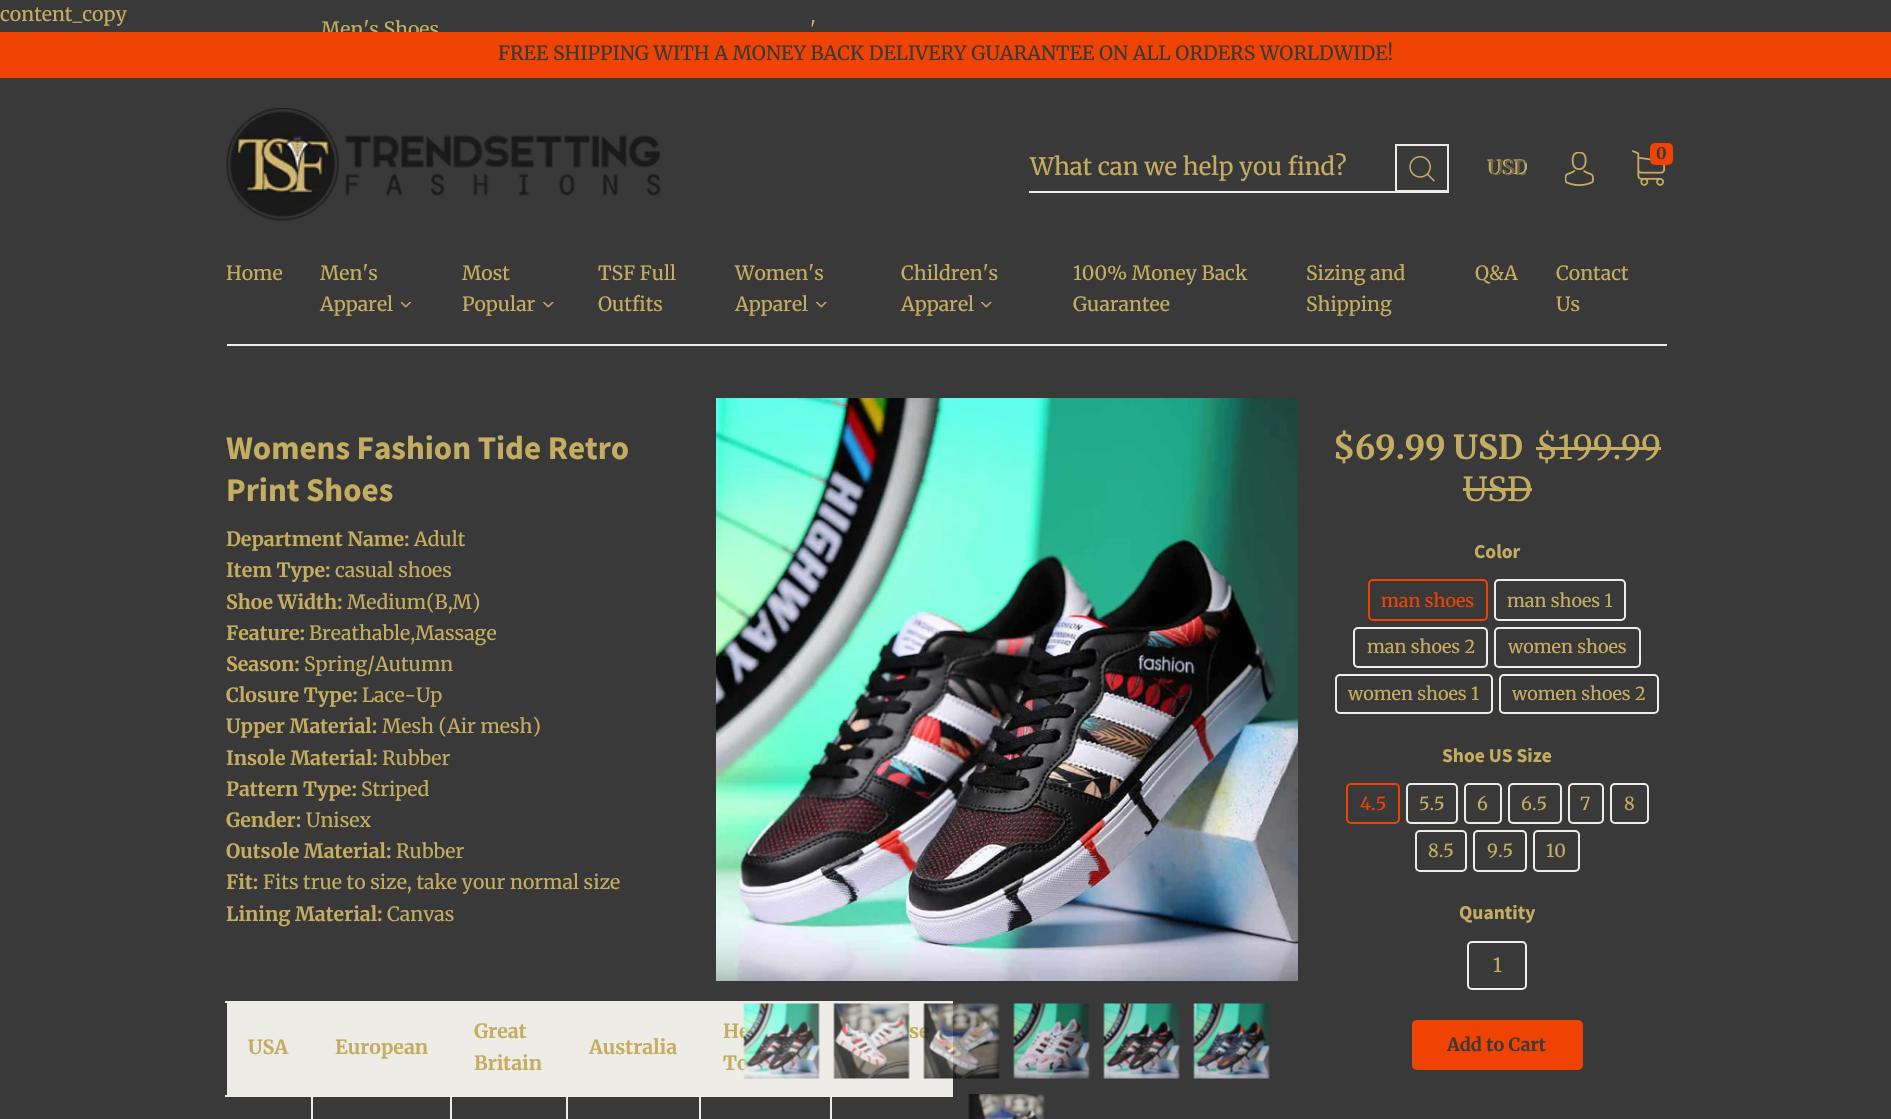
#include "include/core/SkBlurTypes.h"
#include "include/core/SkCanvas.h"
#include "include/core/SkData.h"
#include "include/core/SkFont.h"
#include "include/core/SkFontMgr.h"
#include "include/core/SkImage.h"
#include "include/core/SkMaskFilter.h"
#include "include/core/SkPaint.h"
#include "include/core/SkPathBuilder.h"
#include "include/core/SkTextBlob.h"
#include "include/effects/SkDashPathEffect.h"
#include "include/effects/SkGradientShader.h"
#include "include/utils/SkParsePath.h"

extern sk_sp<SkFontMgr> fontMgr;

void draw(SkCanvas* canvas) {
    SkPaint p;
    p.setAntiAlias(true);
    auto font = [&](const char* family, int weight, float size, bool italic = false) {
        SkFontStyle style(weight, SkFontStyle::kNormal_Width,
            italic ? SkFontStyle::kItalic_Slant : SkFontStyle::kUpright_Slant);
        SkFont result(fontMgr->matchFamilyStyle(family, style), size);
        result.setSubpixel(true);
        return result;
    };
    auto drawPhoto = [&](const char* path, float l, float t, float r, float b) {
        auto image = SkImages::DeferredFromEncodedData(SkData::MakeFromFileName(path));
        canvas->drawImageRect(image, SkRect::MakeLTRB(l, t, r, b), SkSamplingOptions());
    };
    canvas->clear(0xFF3A3939);
    auto font1 = font("Merriweather", 400, 19.5f);
    p.setColor(0xFFC4AC60);
    {
        const struct { const char* s; float x, y; } items[] = {
            {"content_copy", 0, 21},
            {"Home", 226, 280},
            {"Men's Shoes", 321, 36},
            {"Men's", 320, 280},
            {"Apparel", 320, 311},
        };
        for (auto [s, x, y] : items) {
            canvas->drawString(s, x, y, font1, p);
        }
    }
    drawPhoto("media/1.png", 401, 302, 411, 308);
    canvas->drawString("Most", 462, 280, font1, p);
    canvas->drawString("Popular", 462, 311, font1, p);
    drawPhoto("media/2.png", 543, 302, 554, 308);
    {
        const struct { const char* s; float x, y; } items[] = {
            {"TSF Full", 598, 280},
            {"Outfits", 598, 311},
            {"'", 810, 36},
            {"Women's", 735, 280},
            {"Apparel", 735, 311},
        };
        for (auto [s, x, y] : items) {
            canvas->drawString(s, x, y, font1, p);
        }
    }
    drawPhoto("media/2.png", 816, 302, 827, 308);
    canvas->drawString("Children's", 901, 280, font1, p);
    canvas->drawString("Apparel", 901, 311, font1, p);
    drawPhoto("media/2.png", 981, 302, 992, 308);
    {
        const struct { const char* s; float x, y; } items[] = {
            {"100% Money Back", 1073, 280},
            {"Guarantee", 1073, 311},
            {"Sizing and", 1306, 280},
            {"Shipping", 1306, 311},
            {"Q&A", 1475, 280},
            {"Contact", 1556, 280},
            {"Us", 1556, 311},
        };
        for (auto [s, x, y] : items) {
            canvas->drawString(s, x, y, font1, p);
        }
    }
    p.setColor(0xFFEEECE6);
    canvas->drawRect(SkRect::MakeLTRB(227, 344, 1667, 346), p);
    drawPhoto("media/3.png", 226, 108, 660, 221);
    canvas->drawRect(SkRect::MakeLTRB(1029, 191, 1449, 193), p);
    auto font2 = font("Merriweather", 400, 24);
    p.setColor(0xFFC4AC60);
    canvas->drawString("What can we help you find?", 1030, 175, font2, p);
    p.setStyle(SkPaint::kStroke_Style);
    p.setStrokeWidth(2);
    p.setColor(0xFFEEECE6);
    canvas->drawRect(SkRect::MakeLTRB(1396, 145, 1448, 191), p);
    drawPhoto("media/4.png", 1409, 156, 1435, 182);
    p.setStyle(SkPaint::kFill_Style);
    p.setColor(0xFFC4AC60);
    canvas->drawString("USD", 1487, 174, font1, p);
    canvas->save();
    canvas->clipRect(SkRect::MakeLTRB(1488, 155, 1526, 185));
    p.setColor(0xFF706648);
    canvas->drawString("USD", 1489, 175, font1, p);
    canvas->restore();
    drawPhoto("media/5.png", 1565, 152, 1594, 186);
    drawPhoto("media/6.png", 1632, 150, 1665, 186);
    p.setColor(0xFFEE4303);
    canvas->drawRoundRect(SkRect::MakeLTRB(1650, 143, 1673, 165), 5, 5, p);
    auto font3 = font("Merriweather", 700, 16);
    p.setColor(0xFF3A3939);
    canvas->drawString("0", 1656, 159, font3, p);
    p.setColor(0xFFEE4303);
    canvas->drawRect(SkRect::MakeLTRB(0, 32, 1891, 78), p);
    p.setColor(0xFF3A3939);
    canvas->drawString("FREE SHIPPING WITH A MONEY BACK DELIVERY GUARANTEE ON ALL ORDERS WORLDWIDE!", 498, 60, font1, p);
    auto font4 = font("Source Sans Pro", 700, 33);
    p.setColor(0xFFC4AC60);
    canvas->drawString("Womens Fashion Tide Retro", 226, 459, font4, p);
    canvas->drawString("Print Shoes", 226, 501, font4, p);
    auto font5 = font("Merriweather", 700, 19.5f);
    canvas->drawString("Department Name:", 226, 546, font5, p);
    canvas->drawString("Adult", 414, 546, font1, p);
    canvas->drawString("Item Type:", 226, 577, font5, p);
    canvas->drawString("casual shoes", 335, 577, font1, p);
    canvas->drawString("Shoe Width:", 226, 609, font5, p);
    canvas->drawString("Medium(B,M)", 347, 609, font1, p);
    canvas->drawString("Feature:", 226, 640, font5, p);
    canvas->drawString("Breathable,Massage", 309, 640, font1, p);
    canvas->drawString("Season:", 226, 671, font5, p);
    canvas->drawString("Spring/Autumn", 304, 671, font1, p);
    canvas->drawString("Closure Type:", 226, 702, font5, p);
    canvas->drawString("Lace-Up", 362, 702, font1, p);
    canvas->drawString("Upper Material:", 226, 733, font5, p);
    canvas->drawString("Mesh (Air mesh)", 382, 733, font1, p);
    canvas->drawString("Insole Material:", 226, 765, font5, p);
    canvas->drawString("Rubber", 382, 765, font1, p);
    canvas->drawString("Pattern Type:", 226, 796, font5, p);
    canvas->drawString("Striped", 361, 796, font1, p);
    canvas->drawString("Gender:", 226, 827, font5, p);
    canvas->drawString("Unisex", 306, 827, font1, p);
    canvas->drawString("Outsole Material:", 226, 858, font5, p);
    canvas->drawString("Rubber", 396, 858, font1, p);
    canvas->drawString("Fit:", 226, 889, font5, p);
    canvas->drawString("Fits true to size, take your normal size", 263, 889, font1, p);
    canvas->drawString("Lining Material:", 226, 921, font5, p);
    canvas->drawString("Canvas", 387, 921, font1, p);
    p.setColor(0xFFEEECE6);
    canvas->drawRect(SkRect::MakeLTRB(227, 1003, 953, 1095), p);
    p.setColor(0xFFC4AC60);
    {
        const struct { const char* s; float x, y; } items[] = {
            {"Great", 474, 1038},
            {"Britain", 474, 1070},
            {"He", 723, 1038},
            {"To", 723, 1070},
        };
        for (auto [s, x, y] : items) {
            canvas->drawString(s, x, y, font5, p);
        }
    }
    p.setColor(0xFFEEECE6);
    canvas->drawRect(SkRect::MakeLTRB(225, 1001, 953, 1003), p);
    p.setColor(0xFFC4AC60);
    {
        const struct { const char* s; float x, y; } items[] = {
            {"se", 909, 1038},
            {"USA", 248, 1054},
            {"European", 335, 1054},
            {"Australia", 589, 1054},
        };
        for (auto [s, x, y] : items) {
            canvas->drawString(s, x, y, font5, p);
        }
    }
    {
        const struct { float l, t, r, b; SkColor color; } items[] = {
            {830, 1095, 953, 1097, 0xFFEEECE6},
            {830, 1095, 832, 1119, 0xFFEEECE6},
            {699, 1095, 831, 1097, 0xFFEEECE6},
            {699, 1095, 701, 1119, 0xFFEEECE6},
            {566, 1095, 701, 1097, 0xFFEEECE6},
            {566, 1095, 568, 1119, 0xFFEEECE6},
            {450, 1095, 567, 1097, 0xFFEEECE6},
            {450, 1095, 452, 1119, 0xFFEEECE6},
            {311, 1095, 452, 1097, 0xFFEEECE6},
            {311, 1095, 313, 1119, 0xFFEEECE6},
            {225, 1095, 312, 1097, 0xFFEEECE6},
        };
        for (auto [l, t, r, b, color] : items) {
            p.setColor(color);
            canvas->drawRect(SkRect::MakeLTRB(l, t, r, b), p);
        }
    }
    drawPhoto("media/7.png", 716, 398, 1298, 981);
    drawPhoto("media/8.png", 743, 1003, 820, 1079);
    drawPhoto("media/9.png", 833, 1003, 910, 1079);
    drawPhoto("media/10.png", 923, 1003, 1000, 1079);
    drawPhoto("media/11.png", 1013, 1003, 1090, 1079);
    drawPhoto("media/12.png", 1103, 1003, 1180, 1079);
    drawPhoto("media/13.png", 1193, 1003, 1270, 1079);
    drawPhoto("media/14.png", 968, 1094, 1045, 1119);
    auto font6 = font("Merriweather", 700, 33);
    p.setColor(0xFFC4AC60);
    canvas->drawString("$69.99 USD", 1333, 459, font6, p);
    auto font7 = font("Merriweather", 400, 33);
    canvas->drawString("$199.99", 1536, 459, font7, p);
    canvas->drawRect(SkRect::MakeLTRB(1536, 447, 1661, 450), p);
    canvas->drawString("USD", 1463, 501, font7, p);
    canvas->drawRect(SkRect::MakeLTRB(1463, 488, 1532, 491), p);
    auto font8 = font("Source Sans Pro", 700, 19.5f);
    canvas->drawString("Color", 1474, 558, font8, p);
    p.setStyle(SkPaint::kStroke_Style);
    p.setColor(0xFFEE4303);
    canvas->drawRoundRect(SkRect::MakeLTRB(1369, 580, 1487, 620), 4, 4, p);
    auto font9 = font("Merriweather", 400, 18);
    p.setStyle(SkPaint::kFill_Style);
    canvas->drawString("man shoes", 1381, 607, font9, p);
    p.setStyle(SkPaint::kStroke_Style);
    p.setColor(0xFFEEECE6);
    canvas->drawRoundRect(SkRect::MakeLTRB(1495, 580, 1625, 620), 4, 4, p);
    p.setStyle(SkPaint::kFill_Style);
    p.setColor(0xFFC4AC60);
    canvas->drawString("man shoes 1", 1507, 607, font9, p);
    p.setStyle(SkPaint::kStroke_Style);
    p.setColor(0xFFEEECE6);
    canvas->drawRoundRect(SkRect::MakeLTRB(1354, 628, 1487, 667), 4, 4, p);
    p.setStyle(SkPaint::kFill_Style);
    p.setColor(0xFFC4AC60);
    canvas->drawString("man shoes 2", 1367, 653, font9, p);
    p.setStyle(SkPaint::kStroke_Style);
    p.setColor(0xFFEEECE6);
    canvas->drawRoundRect(SkRect::MakeLTRB(1495, 628, 1640, 667), 4, 4, p);
    p.setStyle(SkPaint::kFill_Style);
    p.setColor(0xFFC4AC60);
    canvas->drawString("women shoes", 1508, 653, font9, p);
    p.setStyle(SkPaint::kStroke_Style);
    p.setColor(0xFFEEECE6);
    canvas->drawRoundRect(SkRect::MakeLTRB(1336, 675, 1492, 713), 4, 4, p);
    p.setStyle(SkPaint::kFill_Style);
    p.setColor(0xFFC4AC60);
    canvas->drawString("women shoes 1", 1348, 700, font9, p);
    p.setStyle(SkPaint::kStroke_Style);
    p.setColor(0xFFEEECE6);
    canvas->drawRoundRect(SkRect::MakeLTRB(1500, 675, 1658, 713), 4, 4, p);
    p.setStyle(SkPaint::kFill_Style);
    p.setColor(0xFFC4AC60);
    canvas->drawString("women shoes 2", 1512, 700, font9, p);
    canvas->drawString("Shoe US Size", 1442, 762, font8, p);
    p.setStyle(SkPaint::kStroke_Style);
    p.setColor(0xFFEE4303);
    canvas->drawRoundRect(SkRect::MakeLTRB(1347, 784, 1399, 823), 4, 4, p);
    p.setStyle(SkPaint::kFill_Style);
    canvas->drawString("4.5", 1360, 810, font9, p);
    p.setStyle(SkPaint::kStroke_Style);
    p.setColor(0xFFEEECE6);
    canvas->drawRoundRect(SkRect::MakeLTRB(1407, 784, 1457, 823), 4, 4, p);
    p.setStyle(SkPaint::kFill_Style);
    p.setColor(0xFFC4AC60);
    canvas->drawString("5.5", 1419, 810, font9, p);
    p.setStyle(SkPaint::kStroke_Style);
    p.setColor(0xFFEEECE6);
    canvas->drawRoundRect(SkRect::MakeLTRB(1465, 784, 1501, 823), 4, 4, p);
    p.setStyle(SkPaint::kFill_Style);
    p.setColor(0xFFC4AC60);
    canvas->drawString("6", 1477, 810, font9, p);
    p.setStyle(SkPaint::kStroke_Style);
    p.setColor(0xFFEEECE6);
    canvas->drawRoundRect(SkRect::MakeLTRB(1509, 784, 1561, 823), 4, 4, p);
    p.setStyle(SkPaint::kFill_Style);
    p.setColor(0xFFC4AC60);
    canvas->drawString("6.5", 1521, 810, font9, p);
    p.setStyle(SkPaint::kStroke_Style);
    p.setColor(0xFFEEECE6);
    canvas->drawRoundRect(SkRect::MakeLTRB(1569, 784, 1603, 823), 4, 4, p);
    p.setStyle(SkPaint::kFill_Style);
    p.setColor(0xFFC4AC60);
    canvas->drawString("7", 1580, 810, font9, p);
    p.setStyle(SkPaint::kStroke_Style);
    p.setColor(0xFFEEECE6);
    canvas->drawRoundRect(SkRect::MakeLTRB(1611, 784, 1648, 823), 4, 4, p);
    p.setStyle(SkPaint::kFill_Style);
    p.setColor(0xFFC4AC60);
    canvas->drawString("8", 1624, 810, font9, p);
    p.setStyle(SkPaint::kStroke_Style);
    p.setColor(0xFFEEECE6);
    canvas->drawRoundRect(SkRect::MakeLTRB(1416, 831, 1466, 871), 4, 4, p);
    p.setStyle(SkPaint::kFill_Style);
    p.setColor(0xFFC4AC60);
    canvas->drawString("8.5", 1428, 857, font9, p);
    p.setStyle(SkPaint::kStroke_Style);
    p.setColor(0xFFEEECE6);
    canvas->drawRoundRect(SkRect::MakeLTRB(1474, 831, 1526, 871), 4, 4, p);
    p.setStyle(SkPaint::kFill_Style);
    p.setColor(0xFFC4AC60);
    canvas->drawString("9.5", 1487, 857, font9, p);
    p.setStyle(SkPaint::kStroke_Style);
    p.setColor(0xFFEEECE6);
    canvas->drawRoundRect(SkRect::MakeLTRB(1534, 831, 1579, 871), 4, 4, p);
    p.setStyle(SkPaint::kFill_Style);
    p.setColor(0xFFC4AC60);
    canvas->drawString("10", 1546, 857, font9, p);
    canvas->drawString("Quantity", 1459, 919, font8, p);
    p.setStyle(SkPaint::kStroke_Style);
    p.setColor(0xFFEEECE6);
    canvas->drawRoundRect(SkRect::MakeLTRB(1468, 942, 1526, 989), 4, 4, p);
    p.setStyle(SkPaint::kFill_Style);
    p.setColor(0xFFC4AC60);
    canvas->drawString("1", 1493, 972, font1, p);
    p.setColor(0xFFEE4303);
    canvas->drawRoundRect(SkRect::MakeLTRB(1412, 1020, 1583, 1070), 5, 5, p);
    auto font10 = font("Merriweather", 700, 18);
    p.setColor(0xFF3A3939);
    canvas->drawString("Add to Cart", 1447, 1051, font10, p);
}
